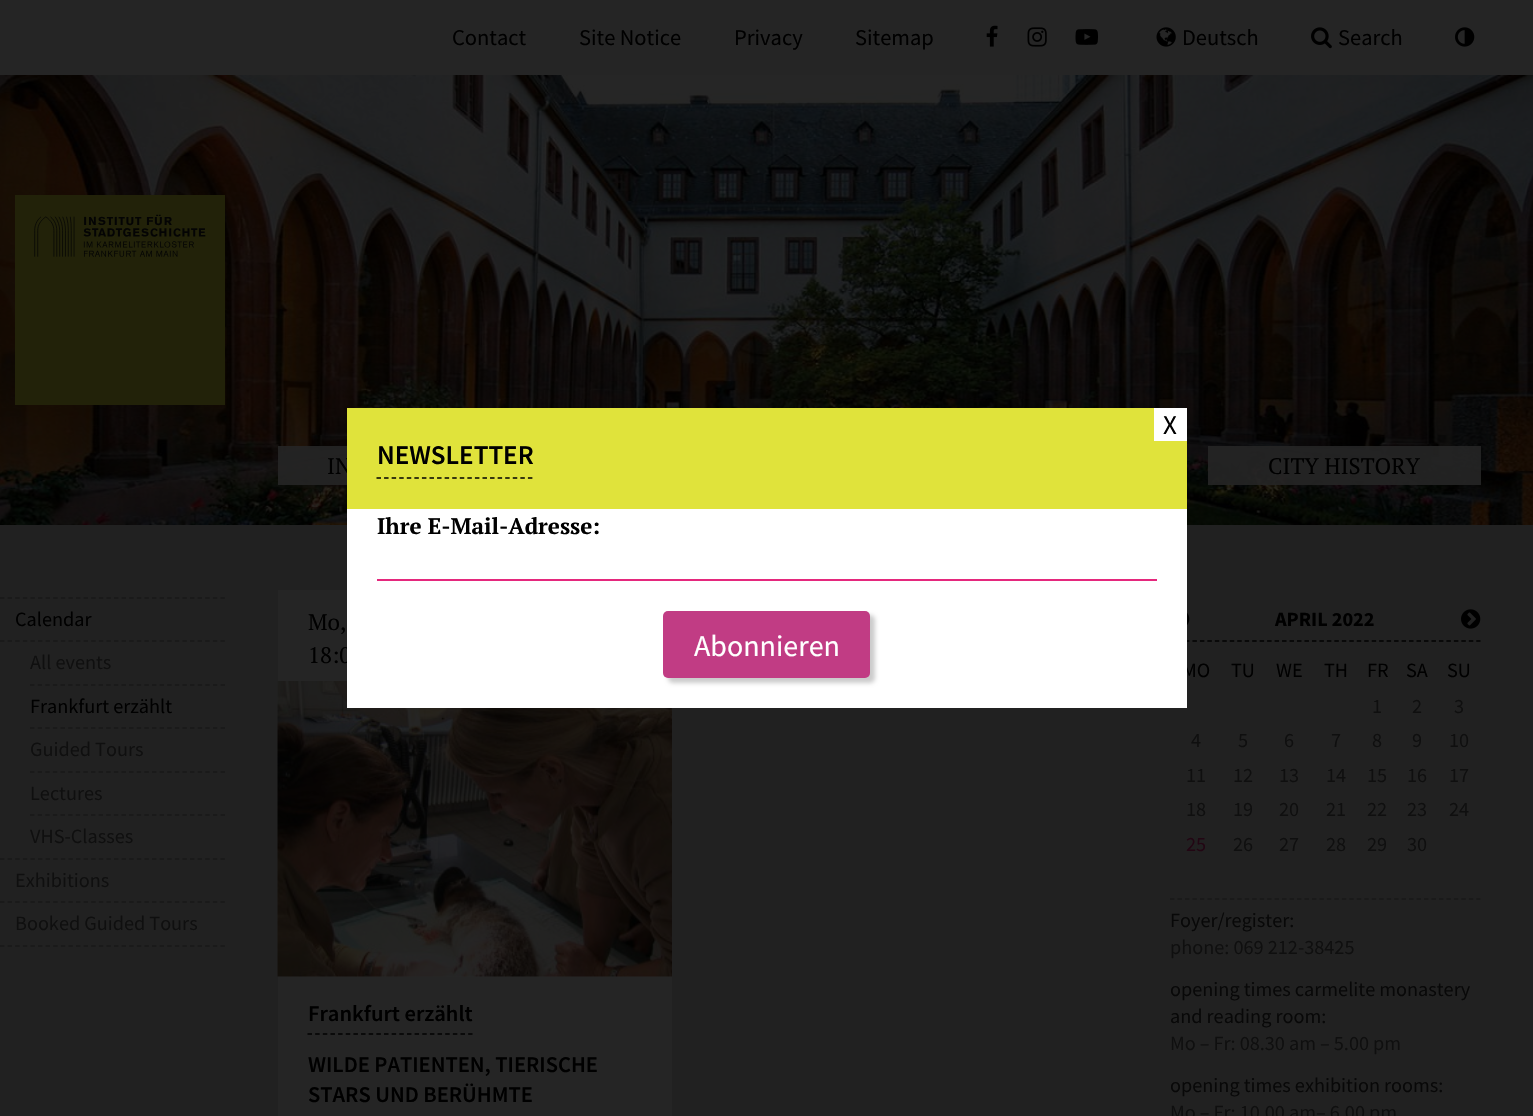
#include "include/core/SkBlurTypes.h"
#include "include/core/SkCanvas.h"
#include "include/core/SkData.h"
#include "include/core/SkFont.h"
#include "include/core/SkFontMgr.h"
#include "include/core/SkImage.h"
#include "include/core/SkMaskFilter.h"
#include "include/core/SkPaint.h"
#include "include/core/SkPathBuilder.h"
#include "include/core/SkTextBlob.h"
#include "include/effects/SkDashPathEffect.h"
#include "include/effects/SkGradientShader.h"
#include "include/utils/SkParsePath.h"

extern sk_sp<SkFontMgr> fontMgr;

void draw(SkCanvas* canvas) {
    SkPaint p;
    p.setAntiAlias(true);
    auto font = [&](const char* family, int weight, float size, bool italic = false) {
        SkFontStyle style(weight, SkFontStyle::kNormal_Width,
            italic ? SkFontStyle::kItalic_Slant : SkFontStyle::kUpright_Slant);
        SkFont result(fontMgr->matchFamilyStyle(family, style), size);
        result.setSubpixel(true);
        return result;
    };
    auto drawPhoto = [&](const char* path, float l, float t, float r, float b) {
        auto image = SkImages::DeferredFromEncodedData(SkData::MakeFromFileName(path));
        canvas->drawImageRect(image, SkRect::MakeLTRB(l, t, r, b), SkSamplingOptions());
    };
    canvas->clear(0xFF212121);
    p.setColor(0xFF252525);
    canvas->drawRect(SkRect::MakeLTRB(0, 0, 1533, 75), p);
    auto font1 = font("Source Sans Pro", 400, 22.5f);
    p.setColor(0xFF000000);
    {
        const struct { const char* s; float x, y; } items[] = {
            {"Contact", 452, 45},
            {"Site Notice", 579, 45},
            {"Privacy", 734, 45},
            {"Sitemap", 855, 45},
        };
        for (auto [s, x, y] : items) {
            canvas->drawString(s, x, y, font1, p);
        }
    }
    drawPhoto("media/1.png", 986, 25, 998, 47);
    drawPhoto("media/2.png", 1027, 27, 1047, 47);
    drawPhoto("media/3.png", 1075, 29, 1098, 45);
    drawPhoto("media/4.png", 1156, 27, 1176, 47);
    canvas->drawString("Deutsch", 1182, 45, font1, p);
    drawPhoto("media/5.png", 1311, 27, 1332, 49);
    canvas->drawString("Search", 1338, 45, font1, p);
    drawPhoto("media/6.png", 1455, 27, 1475, 47);
    drawPhoto("media/7.png", 0, 75, 1533, 525);
    drawPhoto("media/8.png", 15, 195, 225, 405);
    p.setColor(0xE6252525);
    canvas->drawRect(SkRect::MakeLTRB(278, 446, 347, 485), p);
    auto font2 = font("PT Serif", 400, 22.5f);
    p.setColor(0xFF000000);
    canvas->drawString("IN", 327, 474, font2, p);
    p.setColor(0xE6252525);
    canvas->drawRect(SkRect::MakeLTRB(1208, 446, 1481, 485), p);
    p.setColor(0xFF000000);
    canvas->drawString("CITY HISTORY", 1268, 474, font2, p);
    p.setStyle(SkPaint::kStroke_Style);
    p.setStrokeWidth(1.5f);
    p.setColor(0xFF171717);
    p.setPathEffect(SkDashPathEffect::Make({{4.5f, 3.1f}}, 0));
    canvas->drawPath(SkPathBuilder().moveTo(0, 598).lineTo(225, 598).detach(), p);
    p.setPathEffect(nullptr);
    p.setPathEffect(SkDashPathEffect::Make({{4.5f, 3.1f}}, 0));
    canvas->drawPath(SkPathBuilder().moveTo(0, 859).lineTo(225, 859).detach(), p);
    p.setPathEffect(nullptr);
    auto font3 = font("Source Sans Pro", 400, 20.25f);
    p.setStyle(SkPaint::kFill_Style);
    p.setColor(0xFF000000);
    canvas->drawString("Calendar", 15, 626, font3, p);
    p.setStyle(SkPaint::kStroke_Style);
    p.setColor(0xFF171717);
    p.setPathEffect(SkDashPathEffect::Make({{4.5f, 3.1f}}, 0));
    canvas->drawPath(SkPathBuilder().moveTo(0, 641).lineTo(225, 641).detach(), p);
    p.setPathEffect(nullptr);
    p.setPathEffect(SkDashPathEffect::Make({{4.5f, 3.12f}}, 0));
    canvas->drawPath(SkPathBuilder().moveTo(30, 685).lineTo(225, 685).detach(), p);
    p.setPathEffect(nullptr);
    p.setStyle(SkPaint::kFill_Style);
    p.setColor(0xFF0F0F0F);
    canvas->drawString("All events", 30, 669, font3, p);
    p.setStyle(SkPaint::kStroke_Style);
    p.setColor(0xFF171717);
    p.setPathEffect(SkDashPathEffect::Make({{4.5f, 3.12f}}, 0));
    canvas->drawPath(SkPathBuilder().moveTo(30, 728).lineTo(225, 728).detach(), p);
    p.setPathEffect(nullptr);
    p.setStyle(SkPaint::kFill_Style);
    p.setColor(0xFF000000);
    canvas->drawString("Frankfurt erzählt", 30, 713, font3, p);
    p.setStyle(SkPaint::kStroke_Style);
    p.setColor(0xFF171717);
    p.setPathEffect(SkDashPathEffect::Make({{4.5f, 3.12f}}, 0));
    canvas->drawPath(SkPathBuilder().moveTo(30, 772).lineTo(225, 772).detach(), p);
    p.setPathEffect(nullptr);
    p.setStyle(SkPaint::kFill_Style);
    p.setColor(0xFF0F0F0F);
    canvas->drawString("Guided Tours", 30, 756, font3, p);
    p.setStyle(SkPaint::kStroke_Style);
    p.setColor(0xFF171717);
    p.setPathEffect(SkDashPathEffect::Make({{4.5f, 3.12f}}, 0));
    canvas->drawPath(SkPathBuilder().moveTo(30, 815).lineTo(225, 815).detach(), p);
    p.setPathEffect(nullptr);
    p.setStyle(SkPaint::kFill_Style);
    p.setColor(0xFF0F0F0F);
    canvas->drawString("Lectures", 30, 800, font3, p);
    canvas->drawString("VHS-Classes", 30, 843, font3, p);
    p.setStyle(SkPaint::kStroke_Style);
    p.setColor(0xFF171717);
    p.setPathEffect(SkDashPathEffect::Make({{4.5f, 3.1f}}, 0));
    canvas->drawPath(SkPathBuilder().moveTo(0, 902).lineTo(225, 902).detach(), p);
    p.setPathEffect(nullptr);
    p.setStyle(SkPaint::kFill_Style);
    p.setColor(0xFF0F0F0F);
    canvas->drawString("Exhibitions", 15, 887, font3, p);
    p.setStyle(SkPaint::kStroke_Style);
    p.setColor(0xFF171717);
    p.setPathEffect(SkDashPathEffect::Make({{4.5f, 3.1f}}, 0));
    canvas->drawPath(SkPathBuilder().moveTo(0, 946).lineTo(225, 946).detach(), p);
    p.setPathEffect(nullptr);
    p.setStyle(SkPaint::kFill_Style);
    p.setColor(0xFF0F0F0F);
    canvas->drawString("Booked Guided Tours", 15, 930, font3, p);
    p.setColor(0xFF252525);
    canvas->drawRect(SkRect::MakeLTRB(278, 590, 672, 1116), p);
    p.setColor(0xFF000000);
    canvas->drawString("Mo,", 308, 630, font2, p);
    canvas->drawString("18:0", 308, 663, font2, p);
    drawPhoto("media/9.png", 277, 681, 672, 977);
    p.setStyle(SkPaint::kStroke_Style);
    p.setPathEffect(SkDashPathEffect::Make({{4.5f, 3.15f}}, 0));
    canvas->drawPath(SkPathBuilder().moveTo(307.5f, 1034).lineTo(472.5f, 1034).detach(), p);
    p.setPathEffect(nullptr);
    auto font4 = font("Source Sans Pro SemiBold", 600, 22.5f);
    p.setStyle(SkPaint::kFill_Style);
    {
        const struct { const char* s; float x, y; } items[] = {
            {"Frankfurt erzählt", 308, 1021},
            {"WILDE PATIENTEN, TIERISCHE", 308, 1072},
            {"STARS UND BERÜHMTE", 308, 1102},
        };
        for (auto [s, x, y] : items) {
            canvas->drawString(s, x, y, font4, p);
        }
    }
    p.setStyle(SkPaint::kStroke_Style);
    p.setPathEffect(SkDashPathEffect::Make({{4.5f, 2.97f}}, 0));
    canvas->drawPath(SkPathBuilder().moveTo(1170, 641).lineTo(1480.5f, 641).detach(), p);
    p.setPathEffect(nullptr);
    drawPhoto("media/10.png", 1187, 612, 1190, 625);
    auto font5 = font("Source Sans Pro", 700, 20.25f);
    p.setStyle(SkPaint::kFill_Style);
    canvas->drawString("APRIL 2022", 1275, 626, font5, p);
    drawPhoto("media/11.png", 1461, 609, 1481, 629);
    {
        const struct { const char* s; float x, y; } items[] = {
            {"MO", 1182, 677},
            {"TU", 1231, 677},
            {"WE", 1276, 677},
            {"TH", 1324, 677},
            {"FR", 1367, 677},
            {"SA", 1406, 677},
            {"SU", 1447, 677},
        };
        for (auto [s, x, y] : items) {
            canvas->drawString(s, x, y, font3, p);
        }
    }
    p.setColor(0xFF0F0F0F);
    {
        const struct { const char* s; float x, y; } items[] = {
            {"1", 1372, 713},
            {"2", 1412, 713},
            {"3", 1454, 713},
            {"4", 1191, 747},
            {"5", 1238, 747},
            {"6", 1284, 747},
            {"7", 1331, 747},
            {"8", 1372, 747},
            {"9", 1412, 747},
            {"10", 1449, 747},
            {"11", 1186, 782},
            {"12", 1233, 782},
            {"13", 1279, 782},
            {"14", 1326, 782},
            {"15", 1367, 782},
            {"16", 1407, 782},
            {"17", 1449, 782},
            {"18", 1186, 816},
            {"19", 1233, 816},
            {"20", 1279, 816},
            {"21", 1326, 816},
            {"22", 1367, 816},
            {"23", 1407, 816},
            {"24", 1449, 816},
        };
        for (auto [s, x, y] : items) {
            canvas->drawString(s, x, y, font3, p);
        }
    }
    p.setColor(0xFF220613);
    canvas->drawString("25", 1186, 851, font3, p);
    p.setColor(0xFF0F0F0F);
    {
        const struct { const char* s; float x, y; } items[] = {
            {"26", 1233, 851},
            {"27", 1279, 851},
            {"28", 1326, 851},
            {"29", 1367, 851},
            {"30", 1407, 851},
        };
        for (auto [s, x, y] : items) {
            canvas->drawString(s, x, y, font3, p);
        }
    }
    p.setStyle(SkPaint::kStroke_Style);
    p.setColor(0xFF171717);
    p.setPathEffect(SkDashPathEffect::Make({{4.5f, 2.97f}}, 0));
    canvas->drawPath(SkPathBuilder().moveTo(1170, 899).lineTo(1480.5f, 899).detach(), p);
    p.setPathEffect(nullptr);
    p.setStyle(SkPaint::kFill_Style);
    p.setColor(0xFF080808);
    canvas->drawString("Foyer/register:", 1170, 927, font3, p);
    p.setColor(0xFF0F0F0F);
    canvas->drawString("phone: 069 212-38425", 1170, 954, font3, p);
    p.setColor(0xFF080808);
    canvas->drawString("opening times carmelite monastery", 1170, 996, font3, p);
    canvas->drawString("and reading room:", 1170, 1023, font3, p);
    p.setColor(0xFF0F0F0F);
    canvas->drawString("Mo – Fr: 08.30 am – 5.00 pm", 1170, 1050, font3, p);
    p.setColor(0xFF080808);
    canvas->drawString("opening times exhibition rooms:", 1170, 1092, font3, p);
    p.setColor(0xFF0F0F0F);
    canvas->drawString("Mo – Fr: 10.00 am– 6.00 pm", 1170, 1119, font3, p);
    {
        const struct { float l, t, r, b; SkColor color; } items[] = {
            {347, 509, 1187, 708, 0xFFFFFFFF},
            {347, 408, 1187, 509, 0xFFE0E33B},
            {1154, 408, 1187, 441, 0xFFFFFFFF},
        };
        for (auto [l, t, r, b, color] : items) {
            p.setColor(color);
            canvas->drawRect(SkRect::MakeLTRB(l, t, r, b), p);
        }
    }
    auto font6 = font("Source Sans Pro", 400, 27);
    p.setColor(0xFF000000);
    canvas->drawString("X", 1163, 434, font6, p);
    p.setStyle(SkPaint::kStroke_Style);
    p.setPathEffect(SkDashPathEffect::Make({{4.5f, 3.07f}}, 0));
    canvas->drawPath(SkPathBuilder().moveTo(376.5f, 478).lineTo(532.5f, 478).detach(), p);
    p.setPathEffect(nullptr);
    auto font7 = font("Source Sans Pro SemiBold", 600, 27);
    p.setStyle(SkPaint::kFill_Style);
    canvas->drawString("NEWSLETTER", 377, 464, font7, p);
    auto font8 = font("PT Serif", 700, 22.5f);
    canvas->drawString("Ihre E-Mail-Adresse:", 377, 534, font8, p);
    p.setColor(0xFFE5287D);
    canvas->drawRect(SkRect::MakeLTRB(377, 579, 1157, 581), p);
    p.setColor(0x33000000);
    p.setMaskFilter(SkMaskFilter::MakeBlur(kNormal_SkBlurStyle, 2));
    canvas->drawRoundRect(SkRect::MakeLTRB(668, 615, 875, 683), 5, 5, p);
    p.setMaskFilter(nullptr);
    p.setColor(0xFFC13C84);
    canvas->drawRoundRect(SkRect::MakeLTRB(663, 611, 870, 678), 5, 5, p);
    auto font9 = font("Source Sans Pro", 400, 30);
    p.setColor(0xFFFFFFFF);
    canvas->drawString("Abonnieren", 694, 656, font9, p);
}
